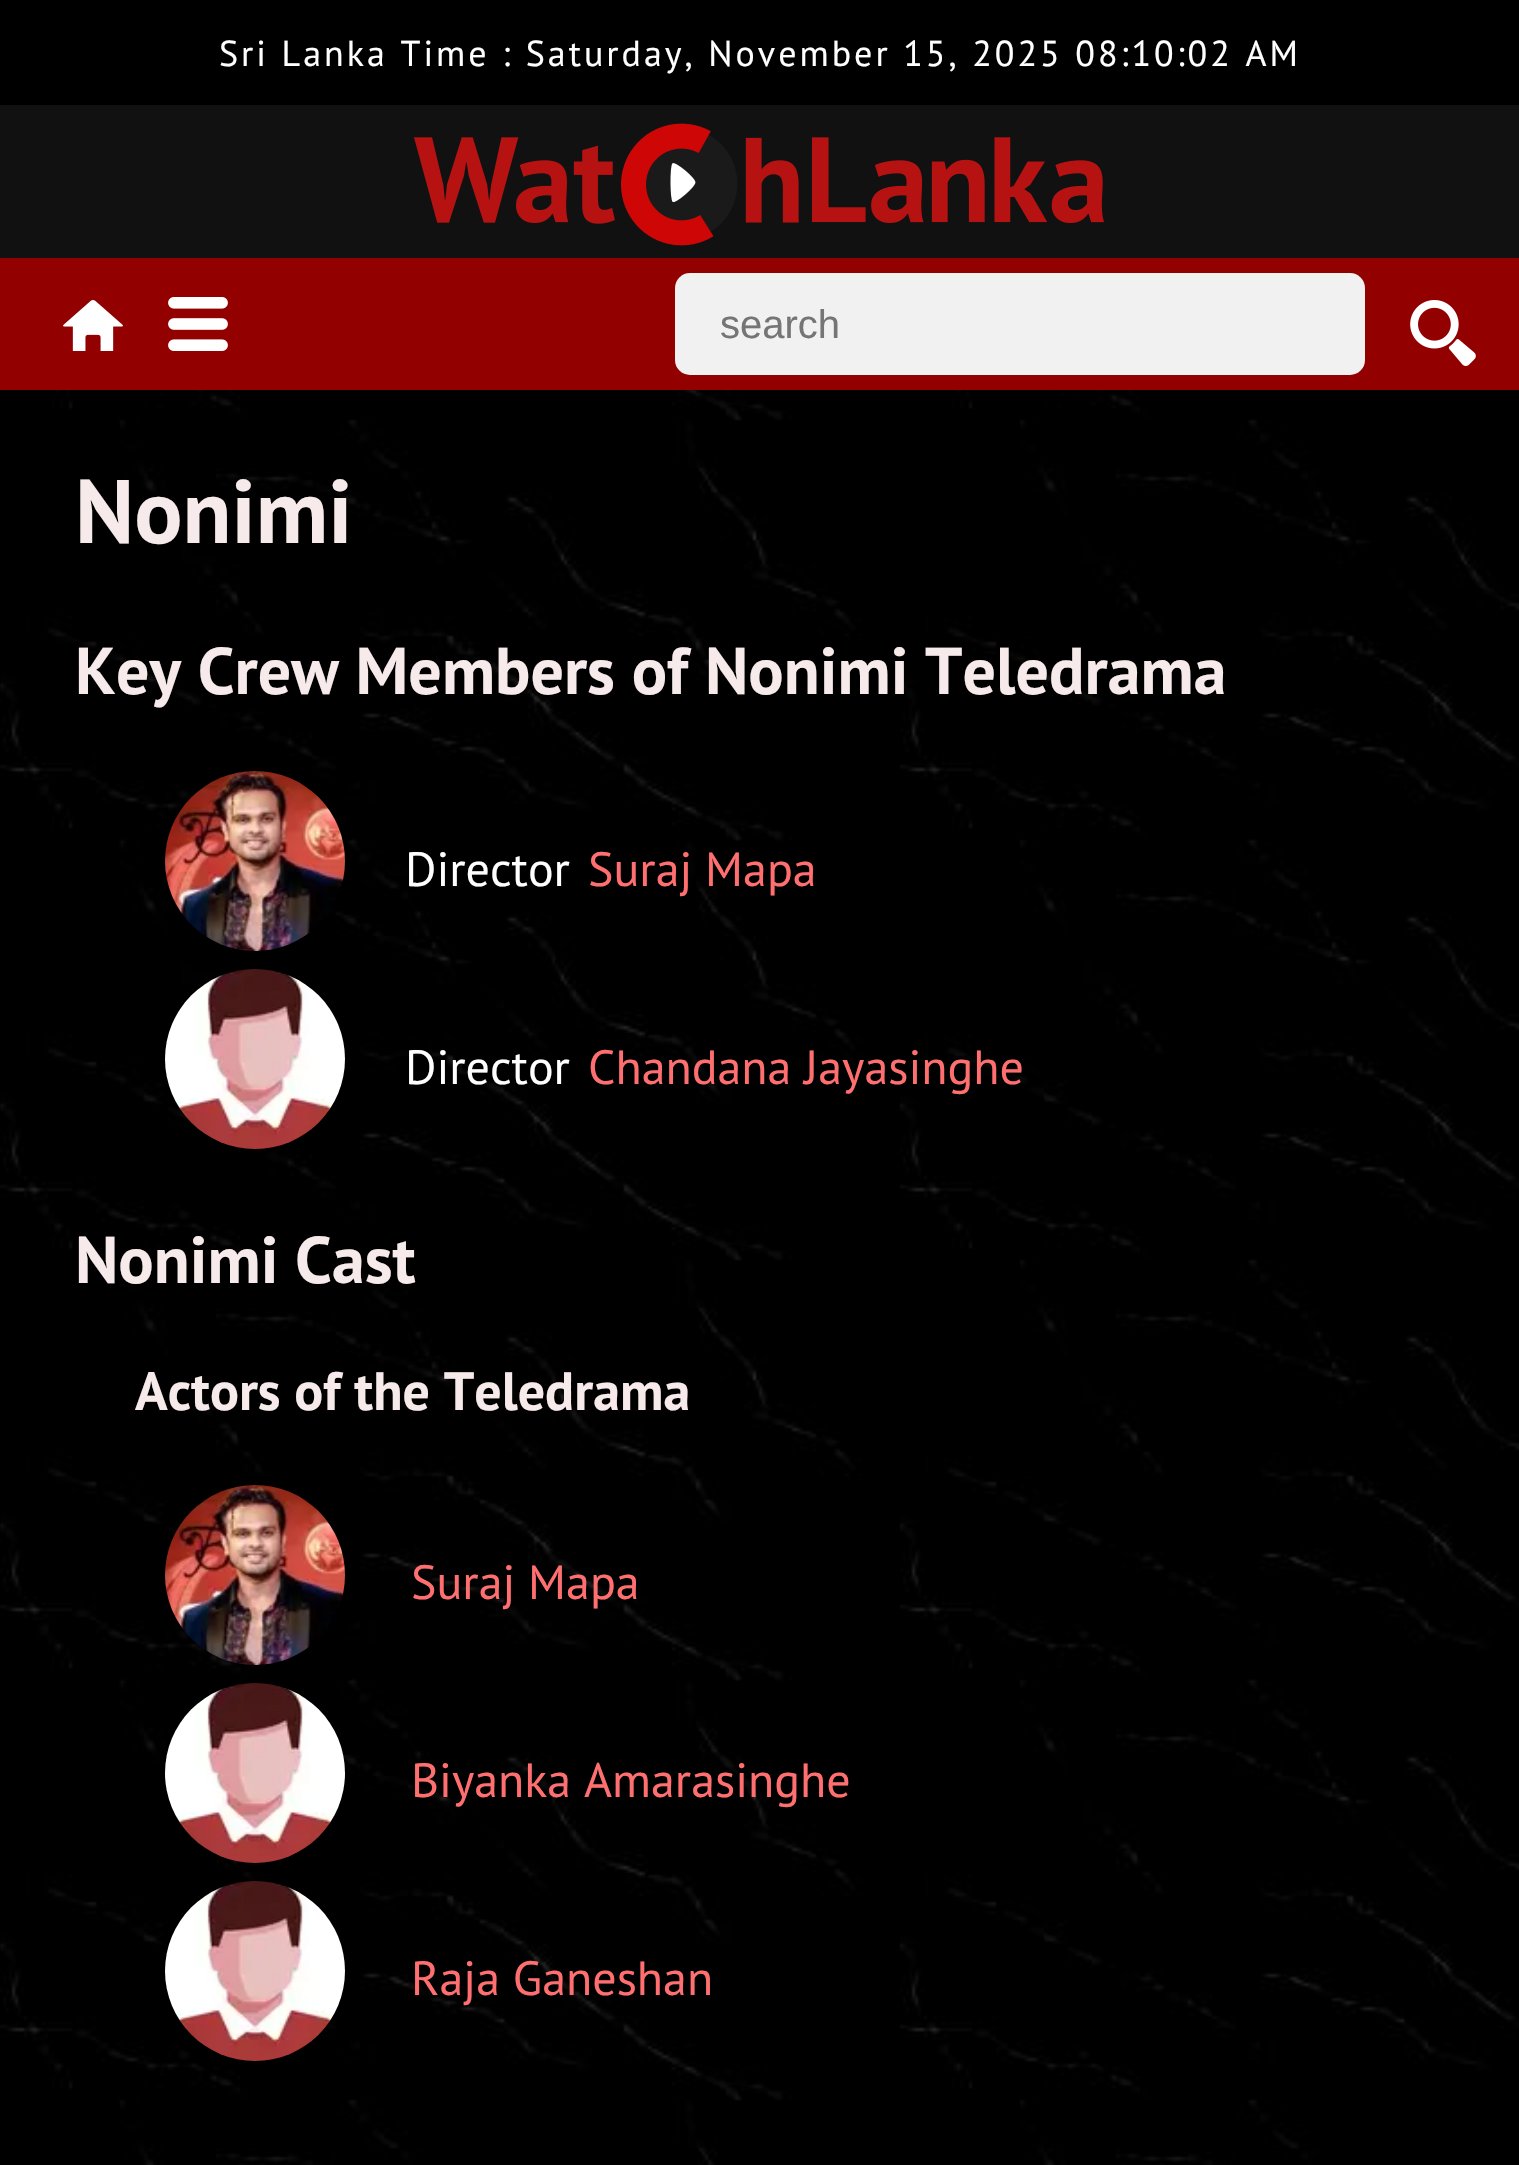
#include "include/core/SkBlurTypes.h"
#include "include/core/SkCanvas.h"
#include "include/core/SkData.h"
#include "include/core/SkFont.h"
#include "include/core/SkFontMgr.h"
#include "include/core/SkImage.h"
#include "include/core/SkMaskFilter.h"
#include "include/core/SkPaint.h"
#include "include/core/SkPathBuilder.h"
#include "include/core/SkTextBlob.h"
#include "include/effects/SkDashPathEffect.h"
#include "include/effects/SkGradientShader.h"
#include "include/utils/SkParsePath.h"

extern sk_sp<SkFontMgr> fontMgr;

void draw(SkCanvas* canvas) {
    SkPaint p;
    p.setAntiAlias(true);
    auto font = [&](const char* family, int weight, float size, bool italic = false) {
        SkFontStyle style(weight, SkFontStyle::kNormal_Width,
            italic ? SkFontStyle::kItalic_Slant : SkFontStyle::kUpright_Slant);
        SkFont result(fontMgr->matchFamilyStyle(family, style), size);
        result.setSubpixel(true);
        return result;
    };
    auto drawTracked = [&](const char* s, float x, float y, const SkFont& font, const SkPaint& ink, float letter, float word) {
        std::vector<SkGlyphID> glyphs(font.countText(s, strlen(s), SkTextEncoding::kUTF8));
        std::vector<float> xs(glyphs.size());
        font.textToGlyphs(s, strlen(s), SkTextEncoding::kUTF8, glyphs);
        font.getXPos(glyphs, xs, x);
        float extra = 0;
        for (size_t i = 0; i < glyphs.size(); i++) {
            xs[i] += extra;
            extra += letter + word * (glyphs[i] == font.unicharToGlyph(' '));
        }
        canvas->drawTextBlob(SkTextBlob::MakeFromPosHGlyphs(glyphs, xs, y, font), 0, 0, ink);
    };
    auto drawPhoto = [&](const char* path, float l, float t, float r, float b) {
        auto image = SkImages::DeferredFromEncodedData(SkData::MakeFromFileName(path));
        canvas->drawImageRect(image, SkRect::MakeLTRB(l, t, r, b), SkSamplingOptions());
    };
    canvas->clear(0xFFFFFFFF);
    drawPhoto("media/1.png", 0, 390, 1519, 2165);
    p.setColor(0xFF111111);
    canvas->drawRect(SkRect::MakeLTRB(0, 105, 1519, 258), p);
    p.setColor(0xFF000000);
    canvas->drawRect(SkRect::MakeLTRB(0, 0, 1519, 105), p);
    auto font1 = font("PT Sans", 400, 36);
    p.setColor(0xFFFFFFFF);
    drawTracked("Sri Lanka Time : Saturday, November 15, 2025 08:10:02 AM", 219, 66, font1, p, 3, 0);
    drawPhoto("media/2.png", 414, 123, 1104, 246);
    p.setColor(0xFF920000);
    canvas->drawRect(SkRect::MakeLTRB(0, 258, 1519, 390), p);
    drawPhoto("media/3.png", 63, 300, 123, 351);
    drawPhoto("media/4.png", 168, 297, 228, 351);
    p.setColor(0xFFF1F1F1);
    canvas->drawRoundRect(SkRect::MakeLTRB(675, 273, 1365, 375), 15, 15, p);
    auto font2 = font("Liberation Sans", 400, 40);
    p.setColor(0xFF757575);
    canvas->drawString("search", 720, 338, font2, p);
    drawPhoto("media/5.png", 1410, 300, 1476, 366);
    auto font3 = font("PT Sans", 700, 90);
    p.setColor(0xFFF7EAEA);
    canvas->drawString("Nonimi", 75, 543, font3, p);
    auto font4 = font("PT Sans", 700, 66);
    canvas->drawString("Key Crew Members of Nonimi Teledrama", 75, 694, font4, p);
    drawPhoto("media/6.png", 165, 771, 345, 951);
    auto font5 = font("PT Sans", 400, 48);
    p.setColor(0xFFFFFFFF);
    canvas->drawString("Director", 405, 886, font5, p);
    p.setColor(0xFFFF6F6F);
    canvas->drawString("Suraj Mapa", 588, 886, font5, p);
    drawPhoto("media/7.png", 165, 969, 345, 1149);
    p.setColor(0xFFFFFFFF);
    canvas->drawString("Director", 405, 1084, font5, p);
    p.setColor(0xFFFF6F6F);
    canvas->drawString("Chandana Jayasinghe", 588, 1084, font5, p);
    p.setColor(0xFFF7EAEA);
    canvas->drawString("Nonimi Cast", 75, 1283, font4, p);
    auto font6 = font("PT Sans", 700, 54);
    canvas->drawString("Actors of the Teledrama", 135, 1410, font6, p);
    drawPhoto("media/8.png", 165, 1485, 345, 1665);
    p.setColor(0xFFFF6F6F);
    canvas->drawString("Suraj Mapa", 411, 1599, font5, p);
    drawPhoto("media/9.png", 165, 1683, 345, 1863);
    canvas->drawString("Biyanka Amarasinghe", 411, 1797, font5, p);
    drawPhoto("media/10.png", 165, 1881, 345, 2061);
    canvas->drawString("Raja Ganeshan", 411, 1995, font5, p);
}
